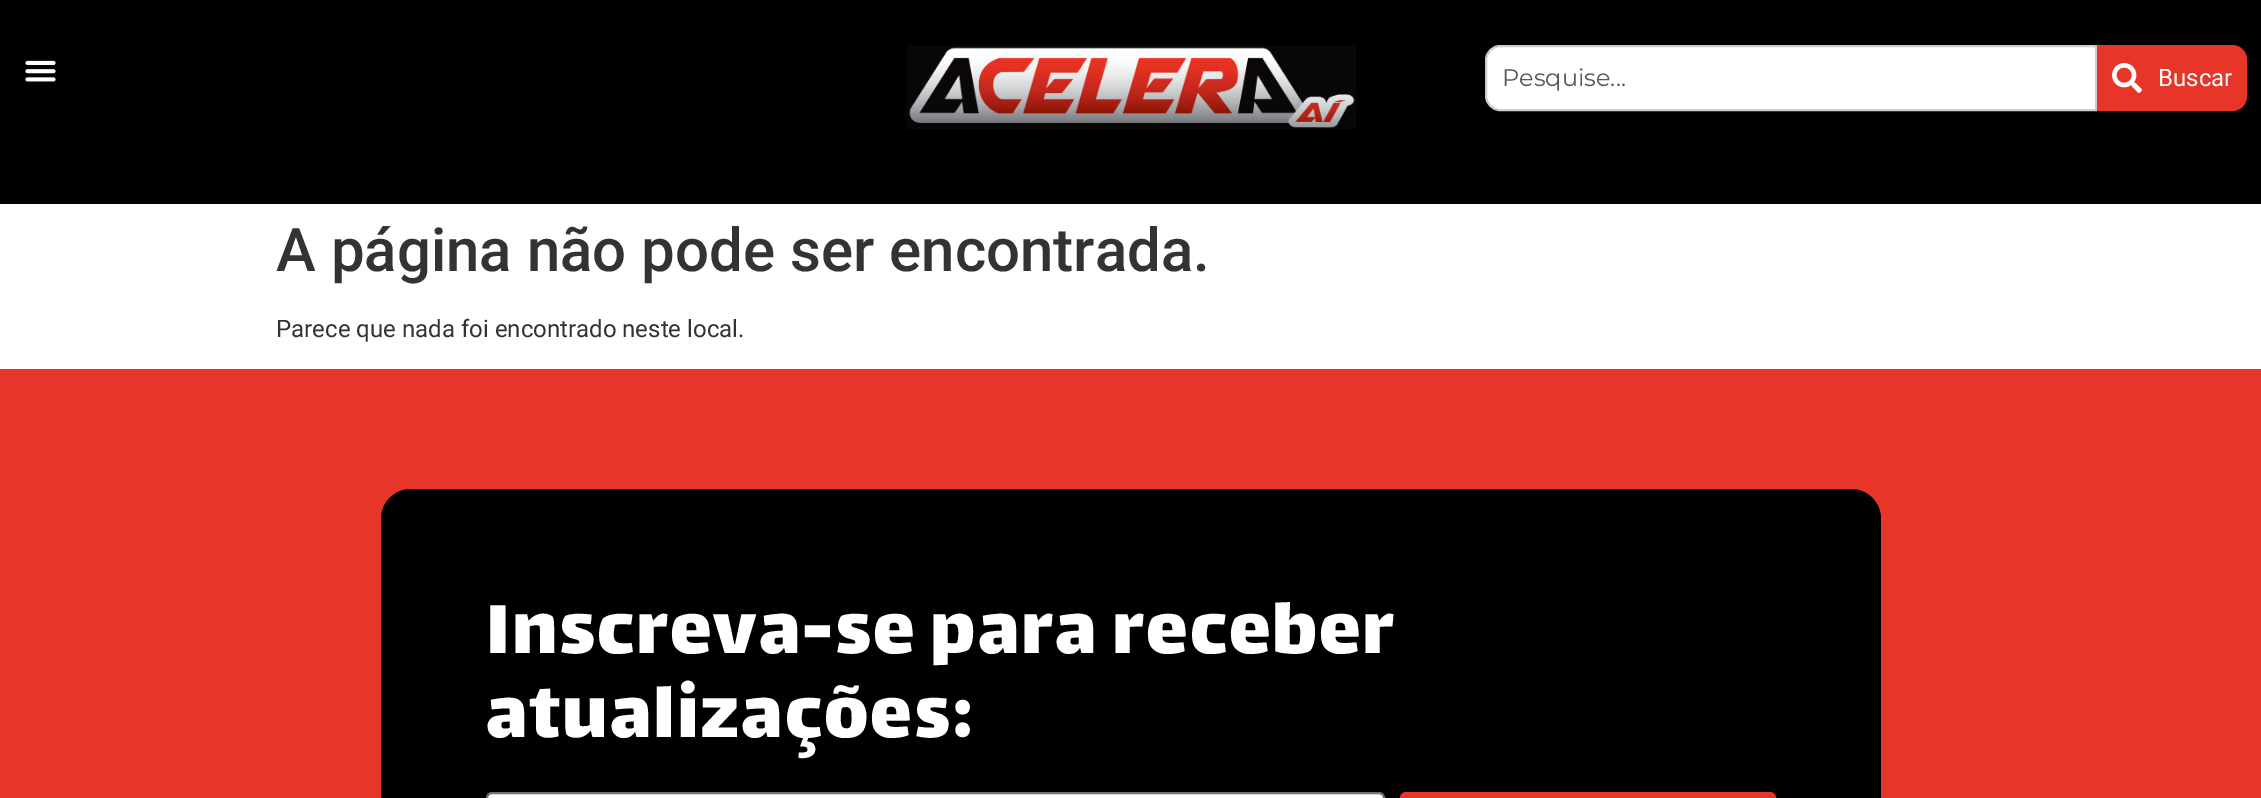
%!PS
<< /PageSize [2261 798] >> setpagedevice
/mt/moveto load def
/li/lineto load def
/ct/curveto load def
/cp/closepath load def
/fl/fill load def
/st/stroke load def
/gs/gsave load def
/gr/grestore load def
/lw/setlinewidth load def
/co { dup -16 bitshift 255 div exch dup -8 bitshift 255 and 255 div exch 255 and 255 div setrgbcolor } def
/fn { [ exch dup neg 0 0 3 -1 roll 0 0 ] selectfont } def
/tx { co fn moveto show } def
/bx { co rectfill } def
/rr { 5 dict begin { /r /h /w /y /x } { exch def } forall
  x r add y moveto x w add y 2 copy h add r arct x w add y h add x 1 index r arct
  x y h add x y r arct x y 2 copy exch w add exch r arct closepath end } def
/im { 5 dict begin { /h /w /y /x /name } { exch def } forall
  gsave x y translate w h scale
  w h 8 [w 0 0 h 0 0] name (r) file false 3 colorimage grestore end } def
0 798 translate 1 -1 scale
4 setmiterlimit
0 0 2261 798 16#FFFFFF bx
0 0 2261 204 16#000000 bx
(media/1.raw) 25 60 31 22 im
(media/2.raw) 906 45 450 84 im
16#FFFFFF co
1500 46 mt 2096 46 li 2096 110 li 1500 110 li 1492.5 110 1486 103.5 1486 96 ct 1486 60 li 1486 52.5 1492.5 46 1500 46 ct cp gs fl gr
16#CDCDCD co
2 lw
st
16#E73629 co
2097 45 mt 2232 45 li 2240.5 45 2247 51.5 2247 60 ct 2247 96 li 2247 104.5 2240.5 111 2232 111 ct 2097 111 li cp fl
(media/3.raw) 2112 63 30 30 im
0 369 2261 429 16#E73629 bx
16#000000 co
381 489 1500 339 30 rr fl
16#FFFFFF co
487 793 897 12 5 rr gs fl gr
16#69727D co
st
16#E73629 co
1400 792 376 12 6 rr fl
(Pesquise...) 1502 86 /Montserrat-Regular 24 16#515962 tx
(Buscar) 2158 86 /Roboto-Regular 24 16#FFFFFF tx
(A página não pode ser encontrada.) 276 271 /Roboto-Medium 60 16#333333 tx
(Parece que nada foi encontrado neste local.) 276 337 /Roboto-Regular 24 16#333333 tx
/Lalezar-Regular 84 fn
16#FFFFFF co
486 653 mt 1.95 0 (Inscreva-se para receber) ashow
486 737 mt 1.95 0 (atualizações:) ashow
showpage
